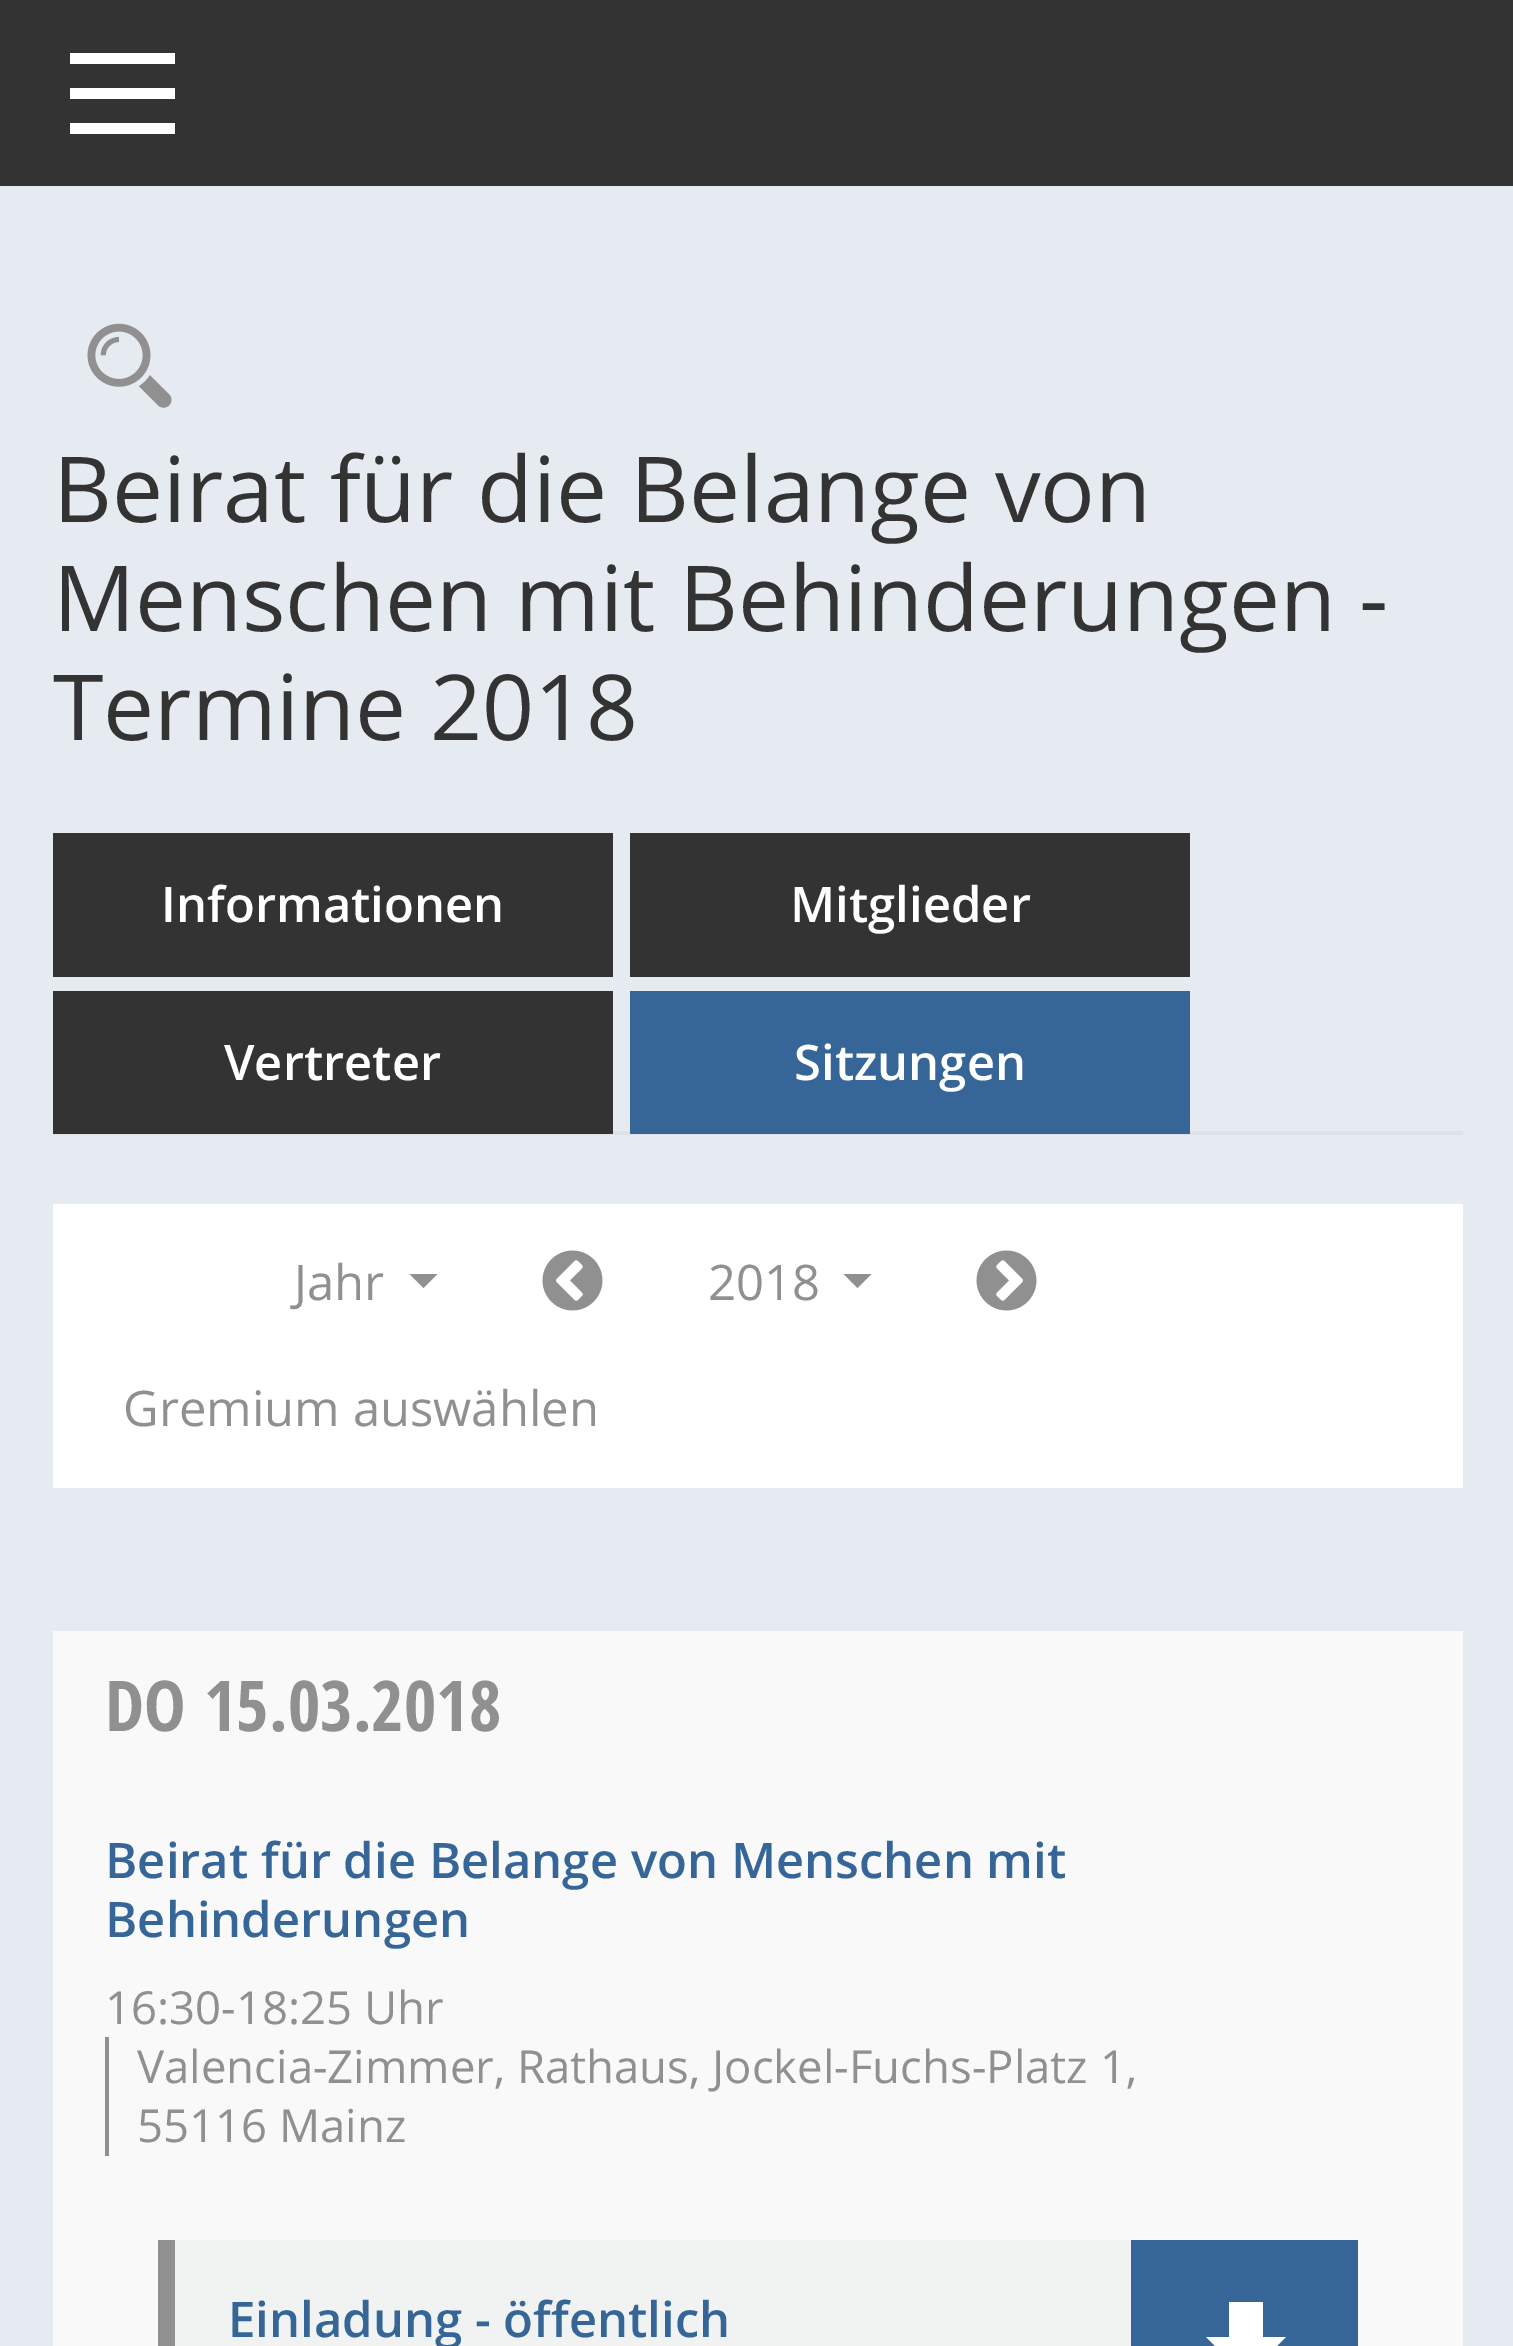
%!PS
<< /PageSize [1513 2346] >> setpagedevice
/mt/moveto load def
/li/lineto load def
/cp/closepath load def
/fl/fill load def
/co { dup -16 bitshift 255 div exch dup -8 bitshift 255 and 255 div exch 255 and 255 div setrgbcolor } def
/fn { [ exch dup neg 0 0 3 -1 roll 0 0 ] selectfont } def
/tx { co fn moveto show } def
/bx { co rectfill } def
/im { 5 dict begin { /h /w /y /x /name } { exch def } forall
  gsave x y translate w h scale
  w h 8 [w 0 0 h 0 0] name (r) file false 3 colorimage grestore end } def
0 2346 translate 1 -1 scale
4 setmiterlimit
0 0 1513 2346 16#E5EBF1 bx
0 0 1513 186 16#333333 bx
70 53 105 11 16#FFFFFF bx
70 88 105 11 16#FFFFFF bx
70 123 105 11 16#FFFFFF bx
(media/1.raw) 87 323 85 85 im
53 1131 1410 4 16#DEE2E6 bx
53 833 560 144 16#333333 bx
630 833 560 144 16#333333 bx
53 991 560 143 16#333333 bx
630 991 560 143 16#356697 bx
53 1204 1410 284 16#FFFFFF bx
16#909090 co
409.5 1274 mt 437.5 1274 li 423.5 1288 li cp fl
(media/2.raw) 542 1250 61 61 im
843.5 1274 mt 871.5 1274 li 857.5 1288 li cp fl
(media/3.raw) 976 1250 61 61 im
53 1631 1410 715 16#F9F9F9 bx
105 2037 4 119 16#909090 bx
175 2240 956 106 16#F0F3F2 bx
158 2240 17 106 16#909090 bx
1131 2240 227 106 16#356697 bx
16#FFFFFF co
1286 2337 mt 1263 2337 li 1263 2302 li 1229 2302 li 1229 2337 li 1206 2337 li 1246 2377 li cp 1206 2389 mt 1206 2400 li 1286 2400 li 1286 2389 li cp fl
(Beirat für die Belange von) 53 522 /OpenSans-Regular 91 16#333333 tx
(Menschen mit Behinderungen -) 53 631 /OpenSans-Regular 91 16#333333 tx
(Termine 2018) 53 740 /OpenSans-Regular 91 16#333333 tx
(Informationen) 161 922 /OpenSans-SemiBold 49 16#FFFFFF tx
(Mitglieder) 790 922 /OpenSans-SemiBold 49 16#FFFFFF tx
(Vertreter) 224 1080 /OpenSans-SemiBold 49 16#FFFFFF tx
(Sitzungen) 794 1080 /OpenSans-SemiBold 49 16#FFFFFF tx
(Jahr) 294 1300 /OpenSans-Regular 49 16#909090 tx
(2018) 708 1300 /OpenSans-Regular 49 16#909090 tx
(Gremium auswählen) 123 1426 /OpenSans-Regular 49 16#909090 tx
(DO) 105 1731 /OpenSansCondensed-Bold 70 16#909090 tx
(15.03.2018) 204 1731 /OpenSansCondensed-Bold 70 16#909090 tx
(Beirat für die Belange von Menschen mit) 105 1878 /OpenSans-SemiBold 49 16#356697 tx
(Behinderungen) 105 1937 /OpenSans-SemiBold 49 16#356697 tx
(16:30-18:25 Uhr) 105 2024 /OpenSans-Regular 45.5 16#909090 tx
(Valencia-Zimmer, Rathaus, Jockel-Fuchs-Platz 1,) 137 2083 /OpenSans-Regular 45.5 16#909090 tx
(55116 Mainz) 137 2142 /OpenSans-Regular 45.5 16#909090 tx
(Einladung - öffentlich) 228 2337 /OpenSans-SemiBold 49 16#356697 tx
showpage
